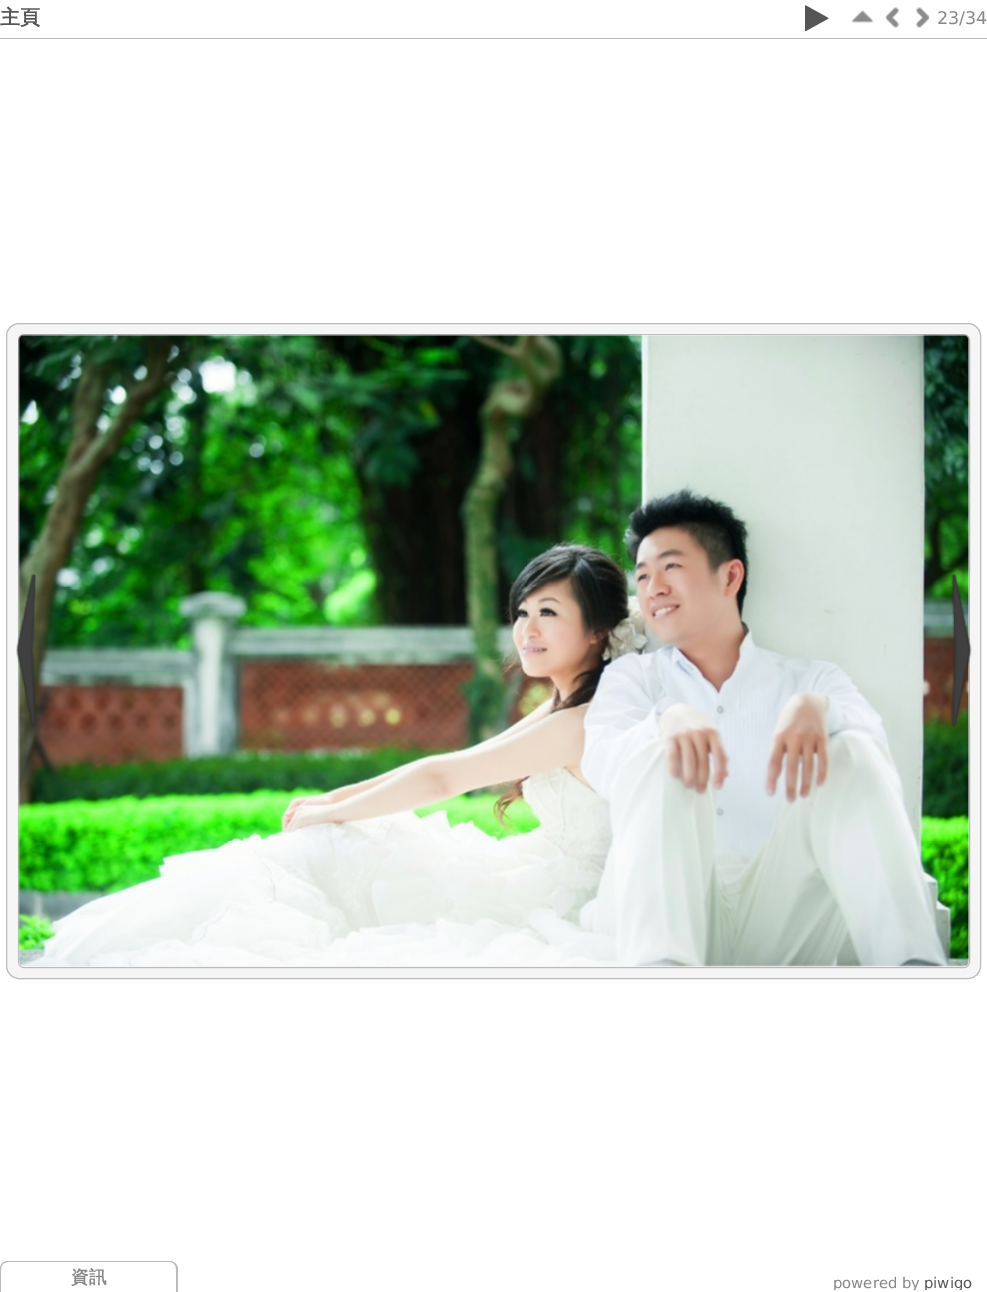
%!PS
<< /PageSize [987 1292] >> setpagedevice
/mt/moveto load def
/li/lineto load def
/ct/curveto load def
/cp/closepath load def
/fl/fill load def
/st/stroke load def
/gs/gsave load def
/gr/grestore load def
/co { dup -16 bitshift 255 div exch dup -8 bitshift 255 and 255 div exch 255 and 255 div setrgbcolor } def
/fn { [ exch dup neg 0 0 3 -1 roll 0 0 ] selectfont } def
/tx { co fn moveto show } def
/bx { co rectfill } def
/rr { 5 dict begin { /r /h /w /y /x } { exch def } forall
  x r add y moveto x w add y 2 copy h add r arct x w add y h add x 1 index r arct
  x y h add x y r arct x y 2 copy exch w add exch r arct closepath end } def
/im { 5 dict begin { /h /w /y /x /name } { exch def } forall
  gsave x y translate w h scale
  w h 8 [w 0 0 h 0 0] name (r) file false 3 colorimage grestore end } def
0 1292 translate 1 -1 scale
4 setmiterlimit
0 0 987 1292 16#FFFFFF bx
0 38 987 1 16#BBBBBB bx
(media/1.raw) 805 5 24 27 im
(media/2.raw) 851 10 23 13 im
(media/3.raw) 885 7 14 21 im
(media/4.raw) 916 7 14 21 im
16#F5F5F5 co
6.5 323.5 974 655 12.5 rr gs fl gr
16#BBBBBB co
st
18.5 334.5 951 633 5.5 rr st
(media/5.raw) 18 334 952 633 im
(media/6.raw) 16 573 21 153 im
(media/7.raw) 951 573 21 154 im
8 1261 mt 170 1261 li 174 1261 178 1265 178 1269 ct 178 1292 li 0 1292 li 0 1269 li 0 1265 3 1261 8 1261 ct cp 8 1262 mt 170 1262 li 173 1262 176 1265 176 1269 ct 176 1292 li 1 1292 li 1 1269 li 1 1265 4 1262 8 1262 ct cp eofill
(主頁) 0 24 /WenQuanYiZenHei-Bold 20 16#555555 tx
(23/34) 937 24 /DejaVuSans-Regular 17.5 16#888888 tx
(資訊) 71 1283 /WenQuanYiZenHei-Bold 17.5 16#888888 tx
gs
833 1275 140 15 rectclip
(powered by) 833 1288 /DejaVuSans-Regular 14.75 16#888888 tx
(piwigo) 924 1288 /DejaVuSans-Regular 14.75 16#555555 tx
gr
showpage
